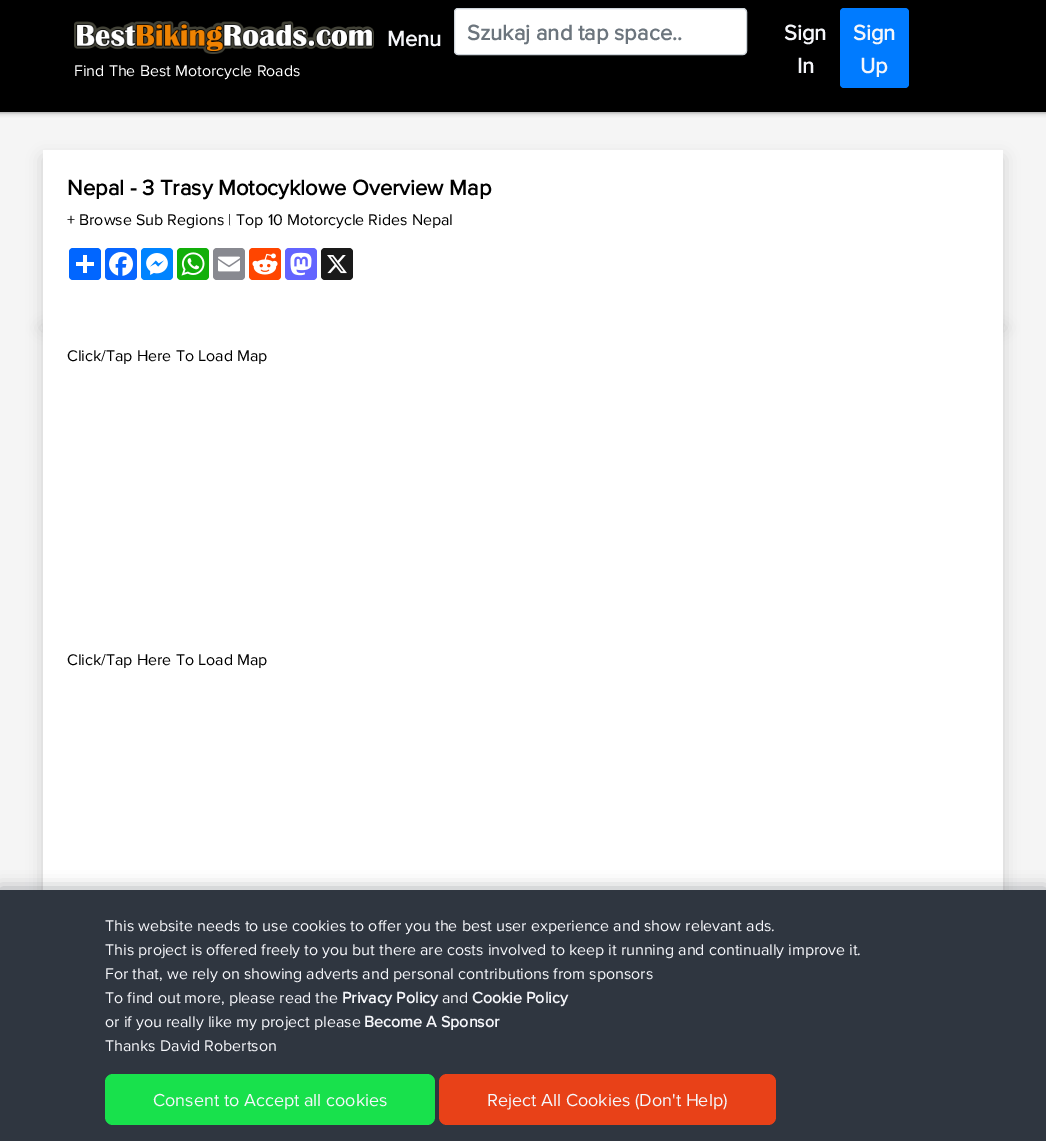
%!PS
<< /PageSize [1046 1141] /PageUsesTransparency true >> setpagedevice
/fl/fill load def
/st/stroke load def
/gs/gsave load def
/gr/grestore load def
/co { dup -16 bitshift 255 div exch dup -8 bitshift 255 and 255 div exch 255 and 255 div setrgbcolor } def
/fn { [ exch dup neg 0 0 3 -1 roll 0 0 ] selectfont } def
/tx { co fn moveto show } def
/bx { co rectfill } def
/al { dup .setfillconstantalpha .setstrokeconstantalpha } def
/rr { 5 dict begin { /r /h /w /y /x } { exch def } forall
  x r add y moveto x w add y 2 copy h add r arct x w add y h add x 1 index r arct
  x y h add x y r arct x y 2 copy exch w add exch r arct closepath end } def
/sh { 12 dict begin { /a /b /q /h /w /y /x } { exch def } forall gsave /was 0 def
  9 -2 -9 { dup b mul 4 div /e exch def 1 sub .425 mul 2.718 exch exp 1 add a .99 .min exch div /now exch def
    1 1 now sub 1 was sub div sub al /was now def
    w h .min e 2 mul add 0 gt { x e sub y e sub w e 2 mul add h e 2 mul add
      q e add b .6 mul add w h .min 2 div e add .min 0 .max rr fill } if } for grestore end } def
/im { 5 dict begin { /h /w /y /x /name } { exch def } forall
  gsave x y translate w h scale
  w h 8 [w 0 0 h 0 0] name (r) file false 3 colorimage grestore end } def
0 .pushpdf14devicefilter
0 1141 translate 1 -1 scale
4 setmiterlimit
0 0 1046 1141 16#F5F5F5 bx
16#000000 co
-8 0 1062 112 0 2.5 .5 sh
0 0 1046 112 16#000000 bx
(media/1.raw) 74 21 300 33 im
16#FFFFFF co
454.5 8.5 292 46 3.5 rr gs fl gr
16#CED4DA co
st
16#007BFF co
840 8 69 80 4 rr fl
16#000000 co
43 158 960 170 0 8 .15 sh
43 328 960 652 0 8 .15 sh
43 150 960 740 16#FFFFFF bx
16#0166FF co
69 248 32 32 4 rr fl
83 255 4 18 16#FFFFFF bx
76 262 18 4 16#FFFFFF bx
16#0866FF co
105 248 32 32 4 rr fl
(media/2.raw) 109 252 24 24 im
16#0084FF co
141 248 32 32 4 rr fl
(media/3.raw) 146 253 22 22 im
16#12AF0A co
177 248 32 32 4 rr fl
(media/4.raw) 181 252 24 24 im
16#888990 co
213 248 32 32 4 rr fl
(media/5.raw) 218 256 22 16 im
16#FF4500 co
249 248 32 32 4 rr fl
(media/6.raw) 252 253 26 22 im
16#6364FF co
285 248 32 32 4 rr fl
(media/7.raw) 290 252 22 24 im
16#1A1A1A co
321 248 32 32 4 rr fl
(media/8.raw) 327 255 20 19 im
16#2F3640 co
0 888 1046 251 0 8 .39 sh
0 890 1046 251 16#2F3640 bx
16#18E14C co
105 1074 330 51 8 rr fl
16#E84118 co
439 1074 337 51 8 rr fl
(Find The Best Motorcycle Roads) 74 76 /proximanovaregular-Regular 16 16#FFFFFF tx
(Menu) 387 46 /proximanovaregular-Bold 22 16#F5F6FA tx
(Szukaj and tap space..) 467 40 /proximanovaregular-Bold 22 16#6C757D tx
(Sign) 784 40 /proximanovaregular-Bold 22 16#F5F6FA tx
(In) 797 73 /proximanovaregular-Bold 22 16#F5F6FA tx
(Sign) 853 40 /proximanovaregular-Bold 22 16#F5F6FA tx
(Up) 860 73 /proximanovaregular-Bold 22 16#F5F6FA tx
(Nepal - 3 Trasy Motocyklowe Overview Map) 67 195 /proximanovaregular-Bold 22 16#000000 tx
(+ Browse Sub Regions | Top 10 Motorcycle Rides Nepal) 67 225 /proximanovaregular-Regular 16 16#000000 tx
(Click/Tap Here To Load Map) 67 361 /proximanovaregular-Regular 16 16#000000 tx
(Click/Tap Here To Load Map) 67 665 /proximanovaregular-Regular 16 16#000000 tx
(This website needs to use cookies to offer you the best user experience and show relevant ads.) 105 931 /proximanovaregular-Regular 16 16#F5F6FA tx
(This project is offered freely to you but there are costs involved to keep it running and continually improve it.) 105 955 /proximanovaregular-Regular 16 16#F5F6FA tx
(For that, we rely on showing adverts and personal contributions from sponsors) 105 979 /proximanovaregular-Regular 16 16#F5F6FA tx
(To find out more, please read the) 105 1003 /proximanovaregular-Regular 16 16#F5F6FA tx
(Privacy Policy) 342 1003 /proximanovaregular-Bold 16 16#F5F6FA tx
(and) 442 1003 /proximanovaregular-Regular 16 16#F5F6FA tx
(Cookie Policy) 472 1003 /proximanovaregular-Bold 16 16#F5F6FA tx
(or if you really like my project please) 105 1027 /proximanovaregular-Regular 16 16#F5F6FA tx
(Become A Sponsor) 364 1027 /proximanovaregular-Bold 16 16#F5F6FA tx
(Thanks David Robertson) 105 1051 /proximanovaregular-Regular 16 16#F5F6FA tx
(Consent to Accept all cookies) 153 1106 /proximanovaregular-Regular 18 16#F5F6FA tx
(Reject All Cookies \(Don't Help\)) 487 1106 /proximanovaregular-Regular 18 16#F5F6FA tx
.poppdf14devicefilter showpage
